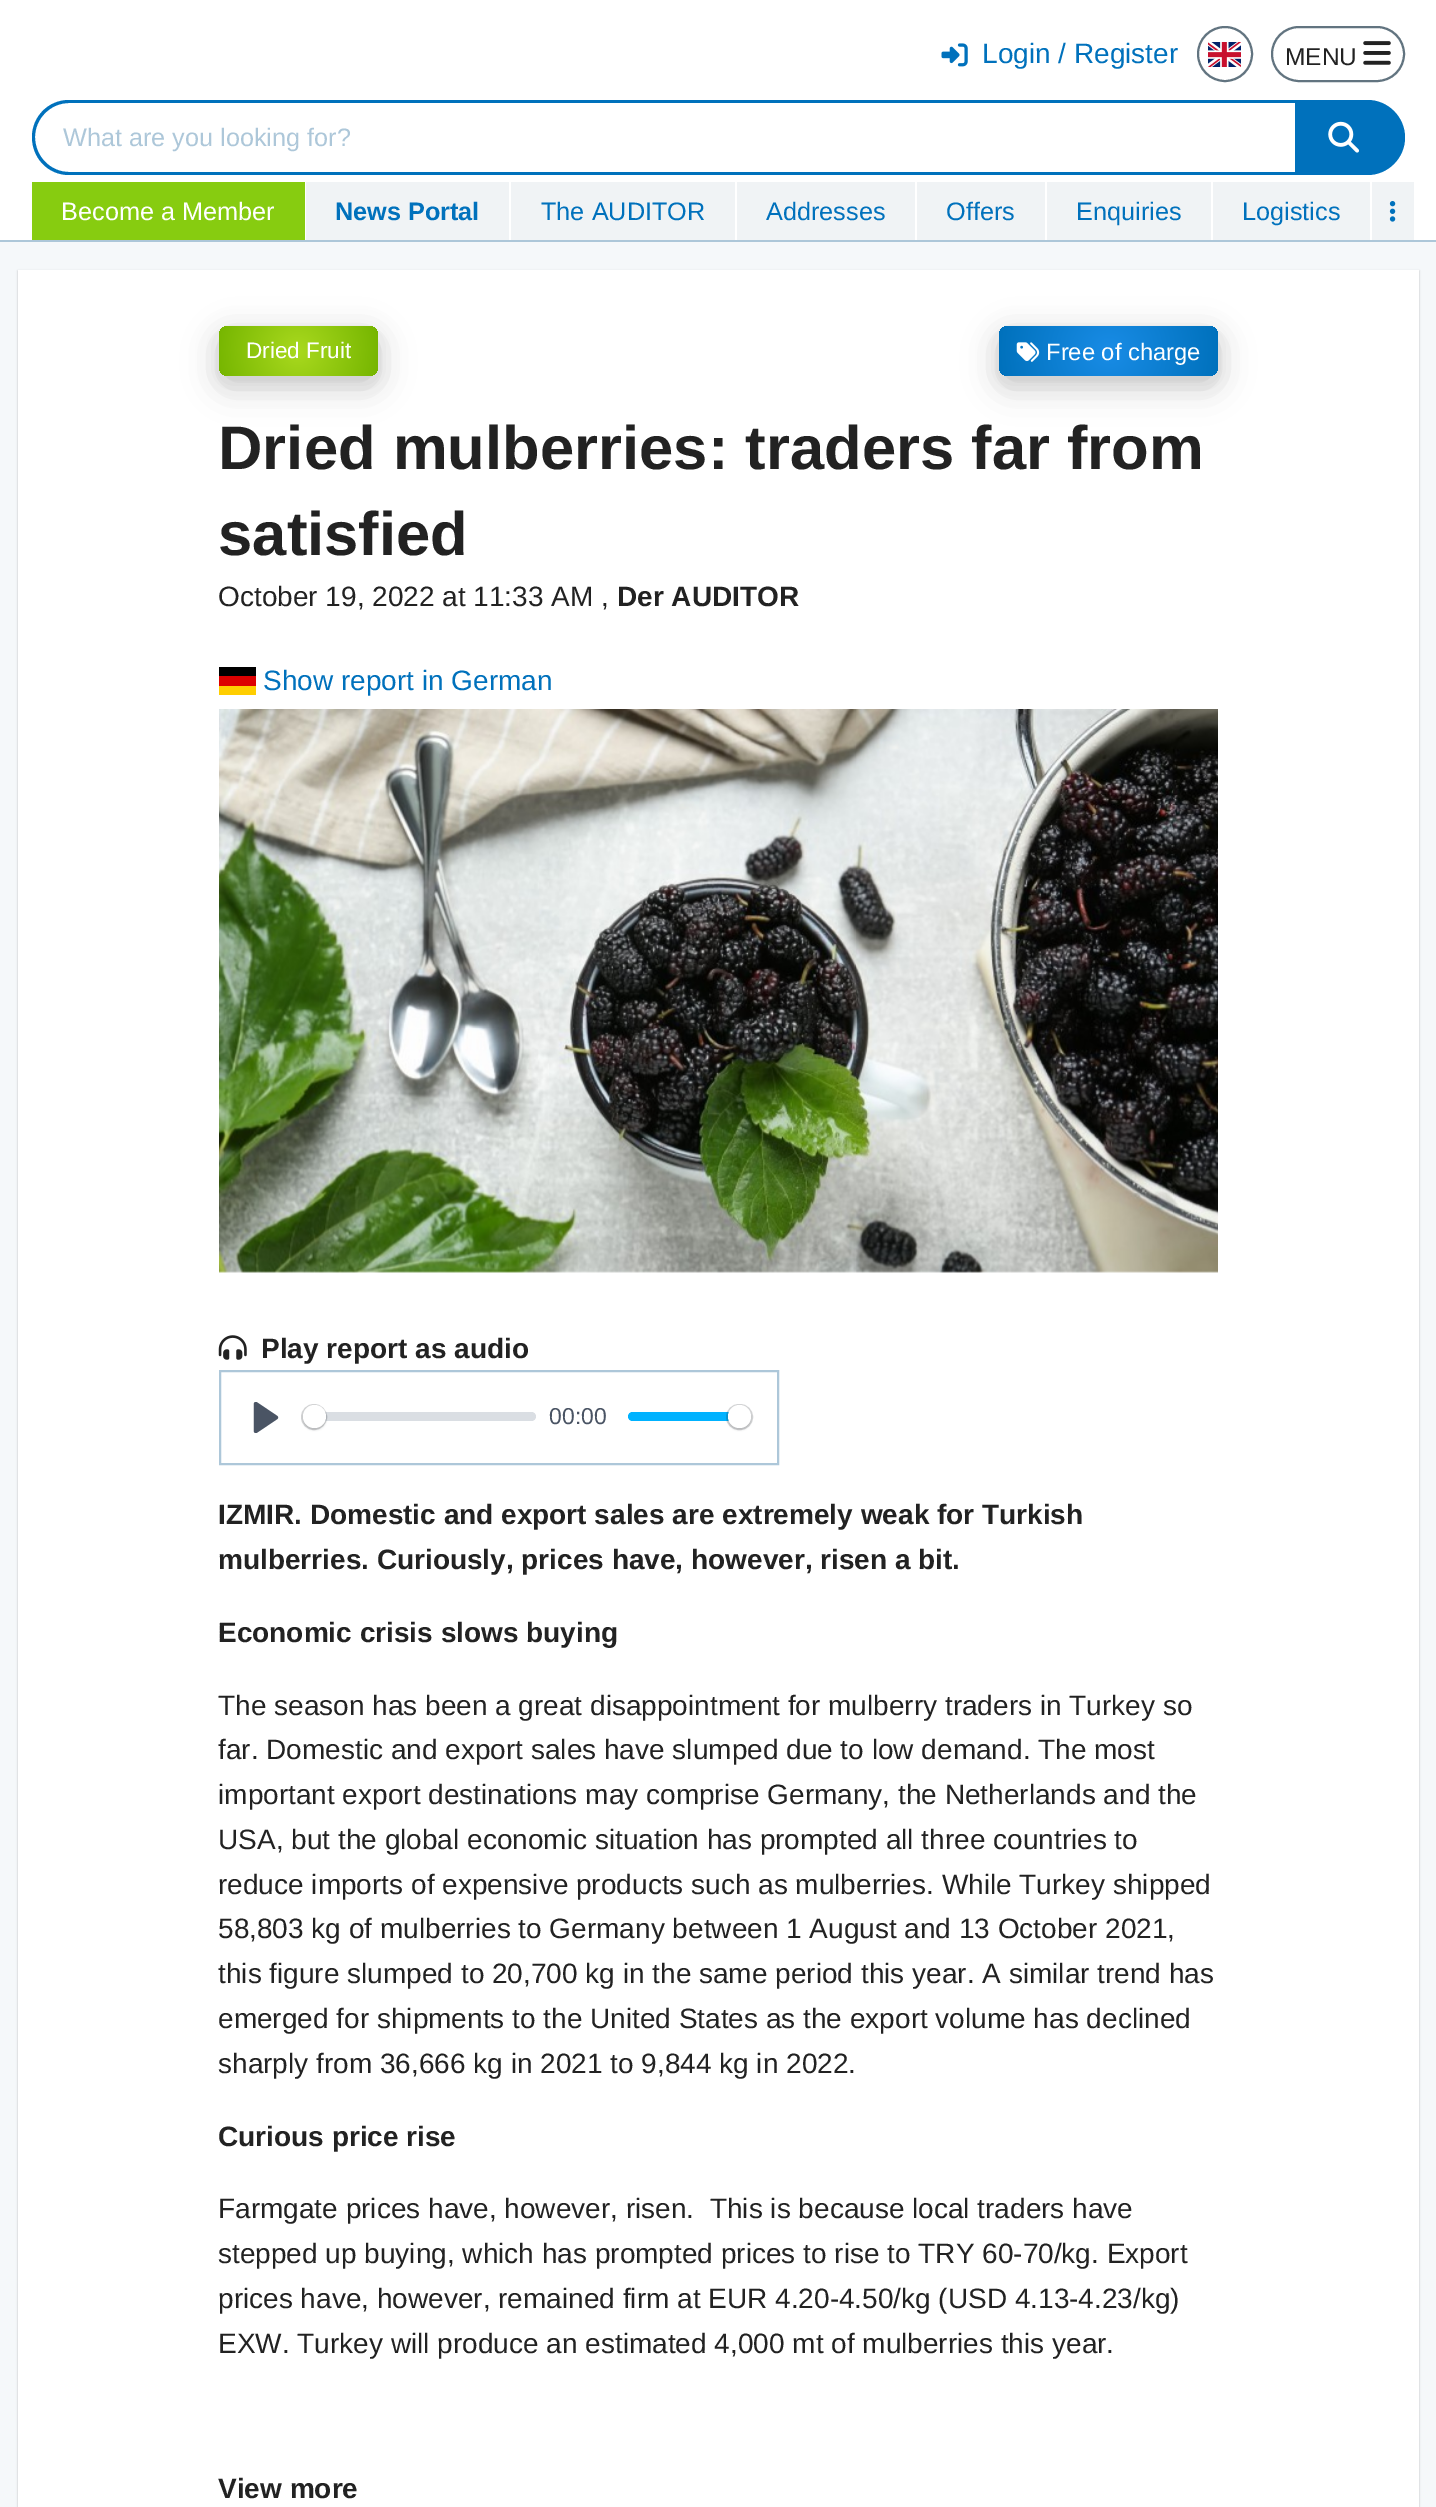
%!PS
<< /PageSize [1436 2507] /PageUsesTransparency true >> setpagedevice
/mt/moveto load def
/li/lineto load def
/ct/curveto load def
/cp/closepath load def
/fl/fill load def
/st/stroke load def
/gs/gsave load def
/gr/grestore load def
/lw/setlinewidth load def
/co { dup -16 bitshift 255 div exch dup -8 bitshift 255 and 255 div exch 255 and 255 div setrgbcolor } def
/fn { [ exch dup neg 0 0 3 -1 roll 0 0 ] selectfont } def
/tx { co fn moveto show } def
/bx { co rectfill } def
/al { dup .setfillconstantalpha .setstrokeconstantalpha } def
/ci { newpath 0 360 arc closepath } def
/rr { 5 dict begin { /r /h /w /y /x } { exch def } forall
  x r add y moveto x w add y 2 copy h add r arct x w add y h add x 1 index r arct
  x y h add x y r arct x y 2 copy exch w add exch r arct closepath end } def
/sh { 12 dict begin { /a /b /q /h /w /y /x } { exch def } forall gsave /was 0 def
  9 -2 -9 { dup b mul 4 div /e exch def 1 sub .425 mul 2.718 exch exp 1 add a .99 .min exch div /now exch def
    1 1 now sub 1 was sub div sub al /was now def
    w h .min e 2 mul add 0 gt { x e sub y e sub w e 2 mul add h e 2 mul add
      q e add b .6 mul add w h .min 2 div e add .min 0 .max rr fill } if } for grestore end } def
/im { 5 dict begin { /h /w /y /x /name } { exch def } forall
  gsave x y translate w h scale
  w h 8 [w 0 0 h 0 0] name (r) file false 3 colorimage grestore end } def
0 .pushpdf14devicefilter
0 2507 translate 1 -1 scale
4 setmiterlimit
0 0 1436 2507 16#F5F8FA bx
0 0 1436 240 16#FFFFFF bx
0 240 1436 2 16#ADC7D9 bx
(media/1.raw) 941 43 27 24 im
16#627480 co
2 lw
1225 54 27 ci st
(media/2.raw) 1208 42 33 25 im
1272 27 132 54 27 rr st
(media/3.raw) 1363 41 28 24 im
16#0071BC co
69 100 mt 1295 100 li 1295 175 li 69 175 li 48 175 32 158 32 137 ct 32 117 48 100 69 100 ct cp 69 103 mt 1295 103 li 1295 172 li 69 172 li 50 172 35 156 35 137 ct 35 119 50 103 69 103 ct cp eofill
1295 100 mt 1367.5 100 li 1388 100 1405 117 1405 137.5 ct 1405 158 1388 175 1367.5 175 ct 1295 175 li cp fl
(media/4.raw) 1328 121 31 32 im
32 182 273 58 16#87CC10 bx
306 182 203 58 16#F0F3F5 bx
511 182 224 58 16#F0F3F5 bx
737 182 178 58 16#F0F3F5 bx
917 182 128 58 16#F0F3F5 bx
1047 182 164 58 16#F0F3F5 bx
1213 182 157 58 16#F0F3F5 bx
1372 182 42 58 16#F0F3F5 bx
(media/5.raw) 1389 201 7 21 im
16#000000 co
18 271 1401 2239 0 1 .25 sh
18 270 1401 2237 16#FFFFFF bx
16#000000 co
219 336 159 51 9 17.5 .15 sh
219 333 159 50 9 10.5 .1 sh
gs 219 326 159 50 9 rr clip newpath 298 351 translate 84 84 scale
<< /ShadingType 3 /ColorSpace /DeviceRGB /Coords [0 0 0 0 0 1] /Extend [true true] /Function << /FunctionType 2 /Domain [0 1] /C0 [.663 .851 .118] /C1 [.459 .71 0] /N 1 >> >> shfill gr
999 336 219 51 9 17.5 .15 sh
999 333 219 50 9 10.5 .1 sh
gs 999 326 219 50 9 rr clip newpath 1109 351 translate 112 112 scale
<< /ShadingType 3 /ColorSpace /DeviceRGB /Coords [0 0 0 0 0 1] /Extend [true true] /Function << /FunctionType 2 /Domain [0 1] /C0 [.098 .549 .902] /C1 [0 .443 .737] /N 1 >> >> shfill gr
(media/6.raw) 1016 342 24 20 im
219 686 37 9 16#FFCE00 bx
219 667 37 9 16#000000 bx
219 676 37 10 16#DD0000 bx
(media/7.raw) 219 709 999 564 im
(media/8.raw) 218 1335 29 25 im
16#ADC7D9 co
220 1371 558 93 rectstroke
(media/9.raw) 253 1402 26 31 im
0.6 al
16#C1C8D1 co
303 1412 233 9 4.5 rr fl
0.2 al
16#23282F co
314 1417 12 ci st
1 al
303 1407 23 23 11.5 1 .15 sh
16#FFFFFF co
314.5 1416.5 11.5 ci fl
16#00B2FF co
628 1412 123 9 4.5 rr fl
0.2 al
16#23282F co
727 1405 25 24 12 rr st
1 al
728 1407 23 23 11.5 1 .15 sh
16#FFFFFF co
739.5 1416.5 11.5 ci fl
(Login / Register) 982 63 /LiberationSans-Regular 28 16#0071BC tx
(MENU) 1285 65 /LiberationSans-Regular 24.5 16#222222 tx
(What are you looking for?) 63 146 /LiberationSans-Regular 25.25 16#ADC7D9 tx
(Become a Member) 61 220 /LiberationSans-Regular 25.25 16#FFFFFF tx
(News Portal) 335 220 /LiberationSans-Bold 25.25 16#0071BC tx
(The AUDITOR) 541 220 /LiberationSans-Regular 25.25 16#0071BC tx
(Addresses) 766 220 /LiberationSans-Regular 25.25 16#0071BC tx
(Offers) 946 220 /LiberationSans-Regular 25.25 16#0071BC tx
(Enquiries) 1076 220 /LiberationSans-Regular 25.25 16#0071BC tx
(Logistics) 1242 220 /LiberationSans-Regular 25.25 16#0071BC tx
(Dried Fruit) 246 358 /LiberationSans-Regular 22.5 16#FFFFFF tx
(Free of charge) 1046 360 /LiberationSans-Regular 23.75 16#FFFFFF tx
(Dried mulberries: traders far from) 218 469 /LiberationSans-Bold 61.6 16#222222 tx
(satisfied) 218 555 /LiberationSans-Bold 61.6 16#222222 tx
(October 19, 2022 at 11:33 AM ,) 218 606 /LiberationSans-Regular 28 16#222222 tx
(Der AUDITOR) 617 606 /LiberationSans-Bold 28 16#222222 tx
(Show report in German) 263 690 /LiberationSans-Regular 28 16#0071BC tx
(Play report as audio) 261 1358 /LiberationSans-Bold 28 16#222222 tx
(00:00) 549 1424 /LiberationSans-Regular 23 16#4A5464 tx
(IZMIR. Domestic and export sales are extremely weak for Turkish) 218 1524 /LiberationSans-Bold 28 16#222222 tx
(mulberries. Curiously, prices have, however, risen a bit.) 218 1569 /LiberationSans-Bold 28 16#222222 tx
(Economic crisis slows buying) 218 1642 /LiberationSans-Bold 28 16#222222 tx
(The season has been a great disappointment for mulberry traders in Turkey so) 218 1715 /LiberationSans-Regular 28 16#222222 tx
(far. Domestic and export sales have slumped due to low demand. The most) 218 1759 /LiberationSans-Regular 28 16#222222 tx
(important export destinations may comprise Germany, the Netherlands and the) 218 1804 /LiberationSans-Regular 28 16#222222 tx
(USA, but the global economic situation has prompted all three countries to) 218 1849 /LiberationSans-Regular 28 16#222222 tx
(reduce imports of expensive products such as mulberries. While Turkey shipped) 218 1894 /LiberationSans-Regular 28 16#222222 tx
(58,803 kg of mulberries to Germany between 1 August and 13 October 2021,) 218 1938 /LiberationSans-Regular 28 16#222222 tx
(this figure slumped to 20,700 kg in the same period this year. A similar trend has) 218 1983 /LiberationSans-Regular 28 16#222222 tx
(emerged for shipments to the United States as the export volume has declined) 218 2028 /LiberationSans-Regular 28 16#222222 tx
(sharply from 36,666 kg in 2021 to 9,844 kg in 2022.) 218 2073 /LiberationSans-Regular 28 16#222222 tx
(Curious price rise) 218 2146 /LiberationSans-Bold 28 16#222222 tx
(Farmgate prices have, however, risen.  This is because local traders have) 218 2218 /LiberationSans-Regular 28 16#222222 tx
(stepped up buying, which has prompted prices to rise to TRY 60-70/kg. Export) 218 2263 /LiberationSans-Regular 28 16#222222 tx
(prices have, however, remained firm at EUR 4.20-4.50/kg \(USD 4.13-4.23/kg\)) 218 2308 /LiberationSans-Regular 28 16#222222 tx
(EXW. Turkey will produce an estimated 4,000 mt of mulberries this year.) 218 2353 /LiberationSans-Regular 28 16#222222 tx
(View more) 218 2498 /LiberationSans-Bold 28 16#222222 tx
.poppdf14devicefilter showpage
